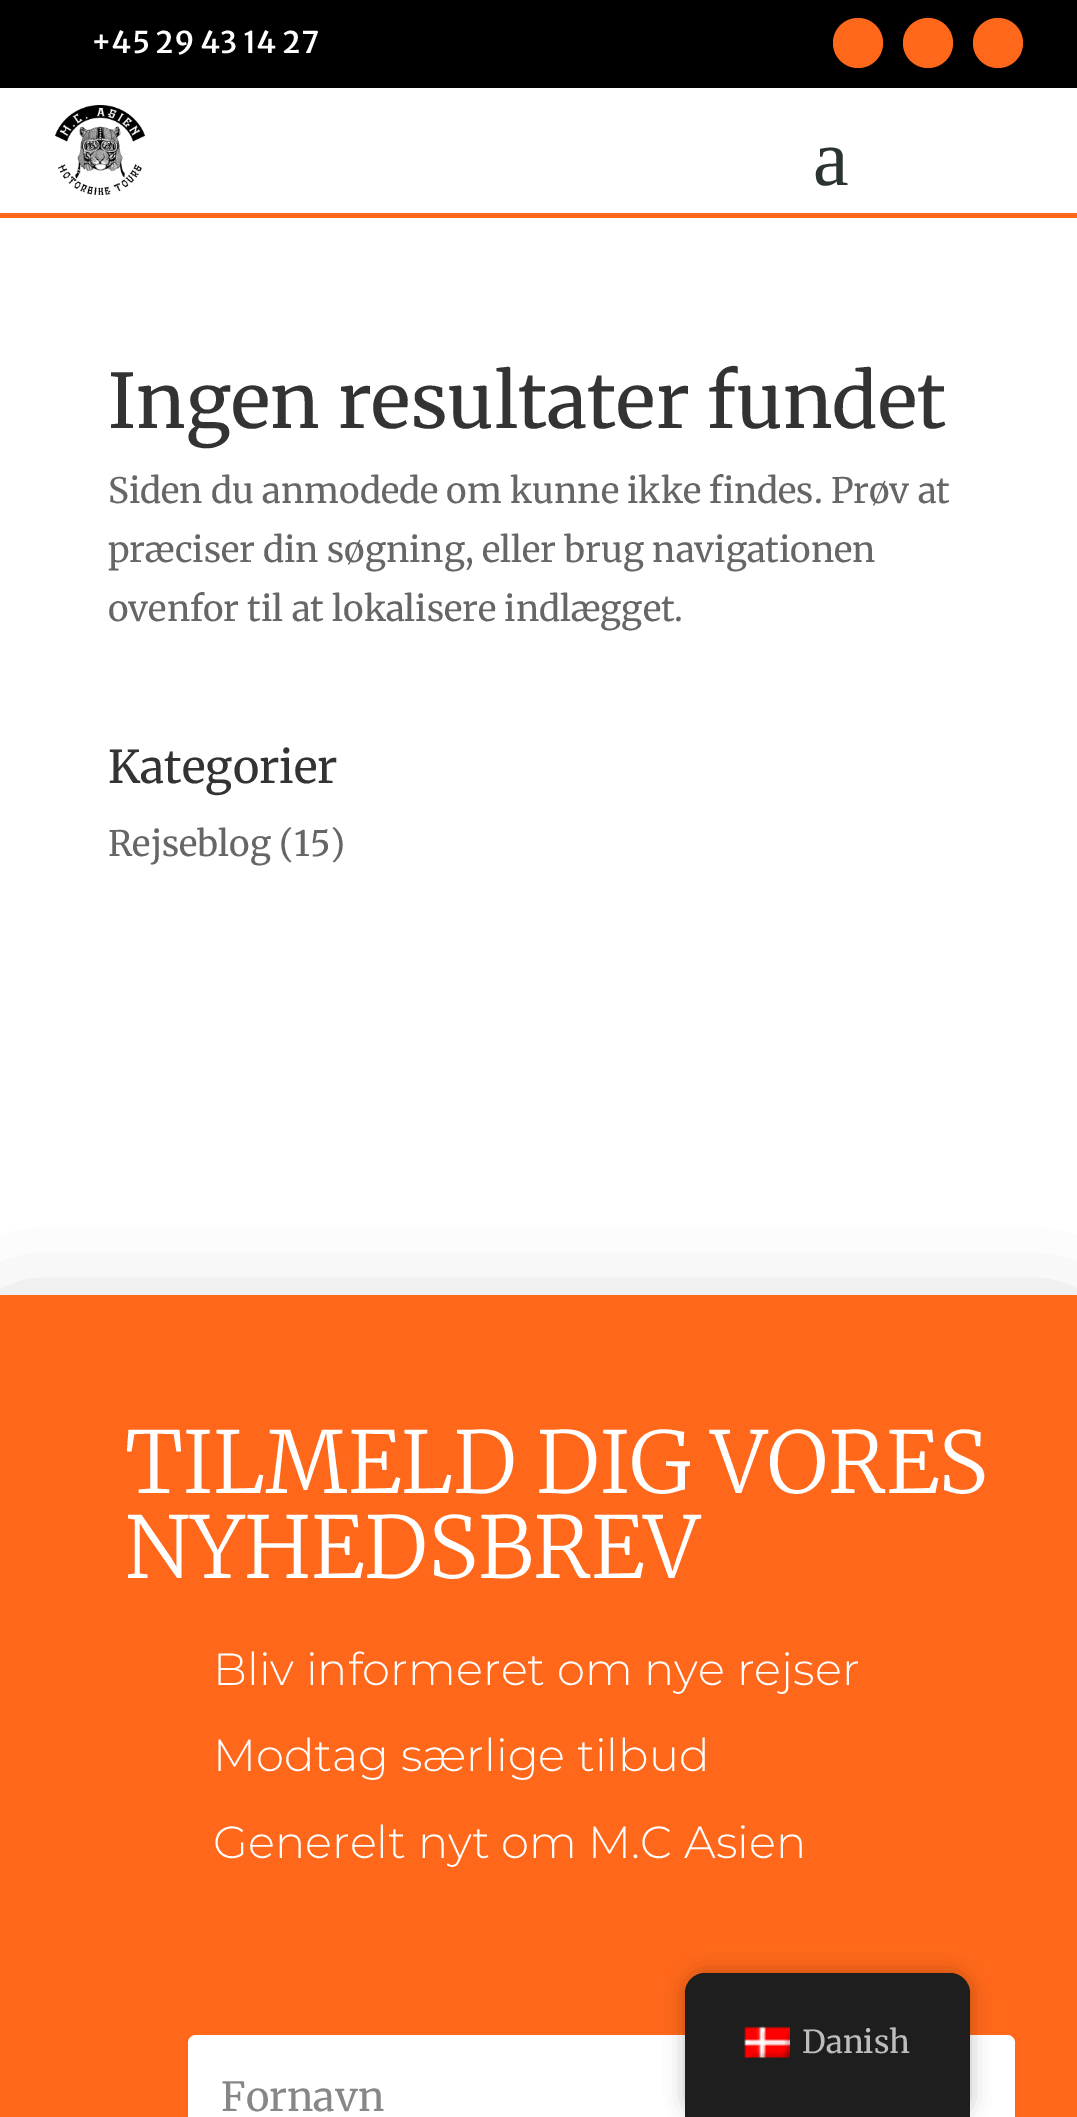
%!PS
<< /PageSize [1077 2117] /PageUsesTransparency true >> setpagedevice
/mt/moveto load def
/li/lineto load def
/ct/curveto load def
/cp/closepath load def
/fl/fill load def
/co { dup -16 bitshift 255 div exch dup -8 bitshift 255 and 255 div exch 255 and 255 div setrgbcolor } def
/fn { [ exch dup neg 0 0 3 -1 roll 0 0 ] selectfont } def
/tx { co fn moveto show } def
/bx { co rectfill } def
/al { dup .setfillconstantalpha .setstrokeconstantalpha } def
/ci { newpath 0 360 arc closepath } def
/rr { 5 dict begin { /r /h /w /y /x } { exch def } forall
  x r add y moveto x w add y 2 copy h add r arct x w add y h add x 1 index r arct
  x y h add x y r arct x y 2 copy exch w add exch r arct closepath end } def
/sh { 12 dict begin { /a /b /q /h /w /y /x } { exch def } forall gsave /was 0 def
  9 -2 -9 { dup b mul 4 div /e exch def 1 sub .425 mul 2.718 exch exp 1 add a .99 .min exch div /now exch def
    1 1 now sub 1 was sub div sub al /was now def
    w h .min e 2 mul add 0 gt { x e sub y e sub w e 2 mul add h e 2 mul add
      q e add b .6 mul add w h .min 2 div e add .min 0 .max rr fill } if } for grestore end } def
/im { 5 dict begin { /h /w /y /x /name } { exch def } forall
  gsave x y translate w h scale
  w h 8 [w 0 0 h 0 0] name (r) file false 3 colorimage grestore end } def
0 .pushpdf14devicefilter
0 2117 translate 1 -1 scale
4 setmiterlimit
0 0 1077 2117 16#FFFFFF bx
0 213 1077 5 16#FF681A bx
0 0 1077 88 16#000000 bx
16#FF681A co
858 43 25 ci fl
928 43 25 ci fl
998 43 25 ci fl
(media/1.raw) 55 105 90 90 im
16#000000 co
15 1340 1048 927 0 50 .38 sh
0 1295 1077 822 16#FF681A bx
16#FFFFFF co
188 2035 827 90 8 rr fl
16#000000 co
685 1973 285 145 20 10 .25 sh
16#1E1E1E co
705 1973 mt 950 1973 li 961 1973 970 1982 970 1993 ct 970 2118 li 685 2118 li 685 1993 li 685 1982 694 1973 705 1973 ct cp fl
(media/2.raw) 744 2026 46 32 im
(+45 29 43 14 27) 91 53 /MerriweatherSans-Medium 30 16#FFFFFF tx
(a) 813 185 /LiberationSerif-Regular 80 16#2C3333 tx
(Ingen resultater fundet) 108 428 /Merriweather-Light 75 16#333333 tx
(Siden du anmodede om kunne ikke findes. Prøv at) 108 503 /Merriweather-Light 35 16#666666 tx
(præciser din søgning, eller brug navigationen) 108 562 /Merriweather-Light 35 16#666666 tx
(ovenfor til at lokalisere indlægget.) 108 621 /Merriweather-Light 35 16#666666 tx
(Kategorier) 108 783 /Merriweather-Light 45 16#333333 tx
(Rejseblog \(15\)) 108 856 /Merriweather-Light 35 16#666666 tx
(TILMELD DIG VORES) 125 1493 /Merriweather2-Light 85 16#FFFFFF tx
(NYHEDSBREV) 125 1578 /Merriweather2-Light 85 16#FFFFFF tx
(Bliv informeret om nye rejser) 213 1685 /Montserrat-Thin 45 16#FFFFFF tx
(Modtag særlige tilbud) 213 1771 /Montserrat-Thin 45 16#FFFFFF tx
(Generelt nyt om M.C Asien) 213 1858 /Montserrat-Thin 45 16#FFFFFF tx
(Fornavn) 221 2111 /Merriweather-Light 40 16#878787 tx
(Danish) 802 2053 /Merriweather-Light 31.5 16#BDBDBD tx
.poppdf14devicefilter showpage
